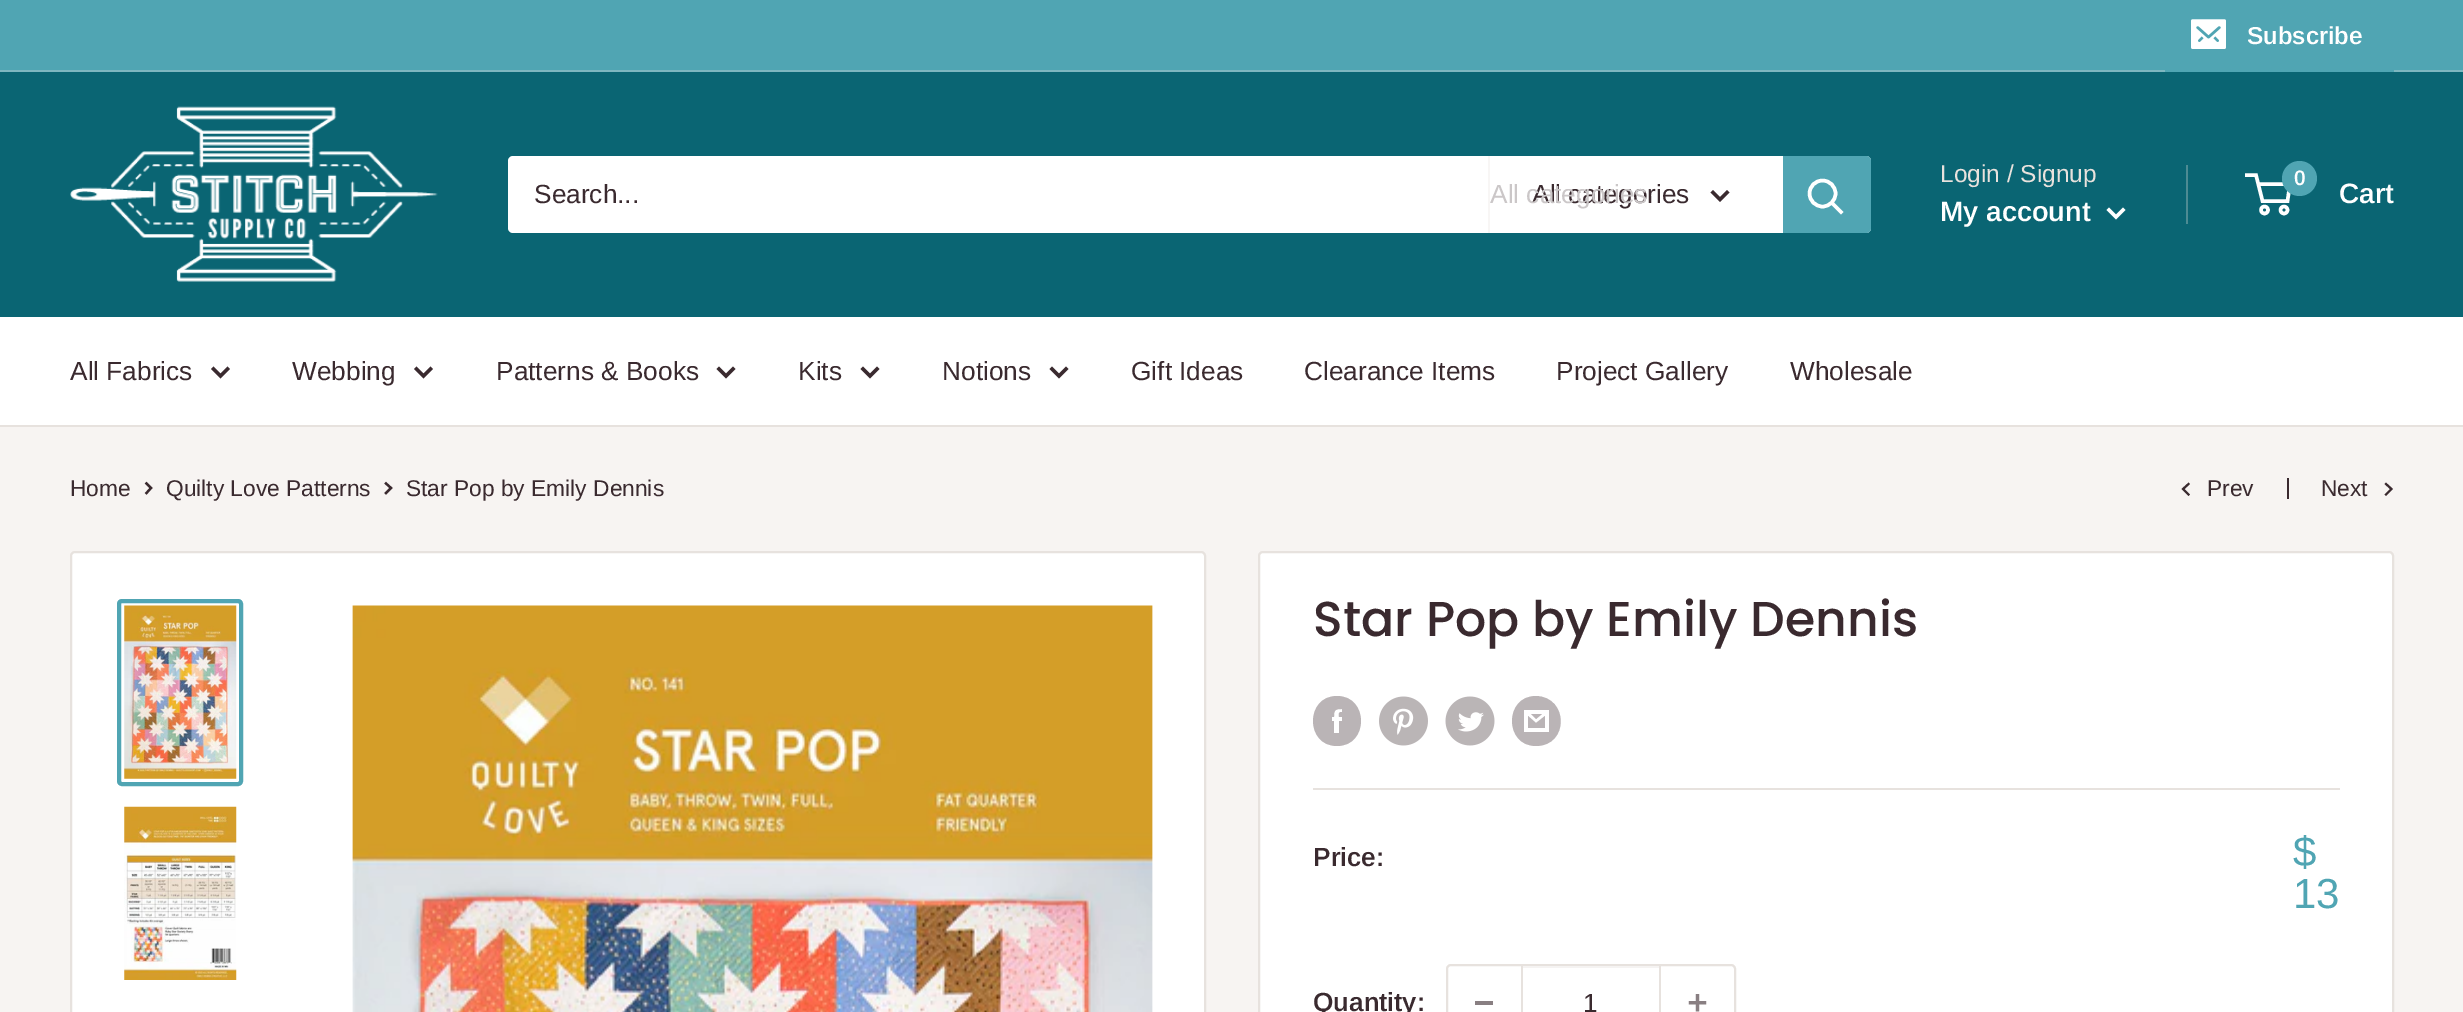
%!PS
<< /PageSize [2463 1012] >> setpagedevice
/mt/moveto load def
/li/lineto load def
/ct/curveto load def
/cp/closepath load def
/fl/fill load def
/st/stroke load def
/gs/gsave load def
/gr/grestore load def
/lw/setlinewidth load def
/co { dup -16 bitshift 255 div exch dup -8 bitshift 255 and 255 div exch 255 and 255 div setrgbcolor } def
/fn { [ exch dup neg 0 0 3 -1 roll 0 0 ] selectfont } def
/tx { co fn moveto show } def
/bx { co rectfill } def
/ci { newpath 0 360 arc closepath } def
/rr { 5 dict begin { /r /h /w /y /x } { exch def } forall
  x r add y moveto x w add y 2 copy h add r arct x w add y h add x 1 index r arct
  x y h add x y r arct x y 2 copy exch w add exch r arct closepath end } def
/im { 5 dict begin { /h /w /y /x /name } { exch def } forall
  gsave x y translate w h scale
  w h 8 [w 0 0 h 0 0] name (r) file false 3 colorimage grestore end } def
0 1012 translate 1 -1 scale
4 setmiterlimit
0 0 2463 1012 16#F7F4F2 bx
0 0 2463 70 16#50A5B3 bx
0 70 2463 2 16#7EB7C0 bx
2165 70 229 2 16#50A5B3 bx
(media/1.raw) 2191 19 35 30 im
0 72 2463 245 16#0A6573 bx
(media/2.raw) 70 106 368 176 im
16#FFFFFF co
508 156 1363 77 5 rr fl
1488 156 2 77 16#F8F6F5 bx
16#3A2A2F co
3.5 lw
2 setlinecap
1727 192.5 mt 1720 199.5 li 1713 192.5 li st
16#50A5B3 co
1783 156 mt 1866 156 li 1869 156 1871 158 1871 161 ct 1871 228 li 1871 231 1869 233 1866 233 ct 1783 233 li cp fl
16#FFFFFF co
1841 212 mt 1832 203 li st
0 setlinecap
1822.5 193.5 13 ci st
2186 165 2 59 16#4D8B93 bx
16#FFFFFF co
2 setlinecap
2123 210 mt 2116 217 li 2109 210 li st
0 setlinecap
2264.5 210 3.5 ci st
2284 210 3.5 ci st
2258 184 mt 2290 184 li 2287.5 201 li 2262.5 201 li 2256 175 li 2245 175 li st
16#50A5B3 co
2299.5 178.5 17.5 ci fl
0 317 2463 108 16#FFFFFF bx
0 425 2463 2 16#E7E2DE bx
16#3A2A2F co
2 setlinecap
227.5 369 mt 220.5 376 li 213.5 369 li st
430.5 369 mt 423.5 376 li 416.5 369 li st
733 369 mt 726 376 li 719 369 li st
877 369 mt 870 376 li 863 369 li st
1066 369 mt 1059 376 li 1052 369 li st
2.3 lw
146.5 483.5 mt 151 488 li 146.5 493 li st
386 483.5 mt 391 488 li 386 493 li st
2 lw
2188.5 494.5 mt 2183 489 li 2188.5 484 li st
2287 478 2 21 16#3A2A2F bx
2386 484 mt 2391.5 489 li 2386 494.5 li st
16#FFFFFF co
71 552 1134 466 4 rr gs fl gr
16#E7E2DE co
0 setlinecap
st
16#50A5B3 co
4 lw
119 601 122 183 3 rr st
(media/3.raw) 124 605 113 174 im
(media/4.raw) 124 806 113 174 im
(media/5.raw) 352 605 801 407 im
16#FFFFFF co
1259 552 1134 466 4 rr gs fl gr
16#E7E2DE co
2 lw
st
16#BAB4B6 co
1337 746 mt 1305 746 1305 696 1337 696 ct 1369 696 1369 746 1337 746 ct cp 1342 717 mt 1339 717 li 1339 714 1338 712 1342 712 ct 1342 709 li 1335 709 1334 710 1334 717 ct 1332 717 li 1332 721 li 1334 721 li 1334 733 li 1339 733 li 1339 721 li 1342 721 li cp eofill
(media/6.raw) 1379 696 49 50 im
(media/7.raw) 1445 696 50 50 im
1536 746 mt 1504 746 1504 696 1536 696 ct 1569 697 1569 746 1536 746 ct cp 1531 714 mt 1542 714 li 1536 719 li cp 1545 716 mt 1545 728 li 1528 728 li 1528 716 li 1536 723 li cp 1549 710 mt 1524 710 li 1524 732 li 1549 732 li cp fl
1313 788 1027 2 16#E7E2DE bx
1447 965 288 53 4 rr st
1475 1001 18 4 16#897F82 bx
1523 966 136 2 16#F5F3F2 bx
1659 966 2 46 16#E7E2DE bx
1521 966 2 46 16#E7E2DE bx
(media/8.raw) 1688 994 19 18 im
(Subscribe) 2247 44 /Arimo-SemiBold 24.5 16#FFFFFF tx
(Search...) 534 203 /Arimo-Regular 26.25 16#3A2A2F tx
(All categories) 1532 203 /Arimo-Regular 26.25 16#3A2A2F tx
(All categories) 1490 203 /Arimo-Regular 26.25 16#CBC7C8 tx
(Login / Signup) 1940 182 /Arimo-Regular 24.5 16#E9E2DD tx
(My account) 1940 221 /Arimo-SemiBold 28 16#FFFFFF tx
(0) 2294 185 /Arimo-SemiBold 21 16#FFFFFF tx
(Cart) 2339 203 /Arimo-SemiBold 28 16#FFFFFF tx
(All Fabrics) 70 380 /Arimo-Regular 26.25 16#3A2A2F tx
(Webbing) 292 380 /Arimo-Regular 26.25 16#3A2A2F tx
(Patterns & Books) 496 380 /Arimo-Regular 26.25 16#3A2A2F tx
(Kits) 798 380 /Arimo-Regular 26.25 16#3A2A2F tx
(Notions) 942 380 /Arimo-Regular 26.25 16#3A2A2F tx
(Gift Ideas) 1131 380 /Arimo-Regular 26.25 16#3A2A2F tx
(Clearance Items) 1304 380 /Arimo-Regular 26.25 16#3A2A2F tx
(Project Gallery) 1556 380 /Arimo-Regular 26.25 16#3A2A2F tx
(Wholesale) 1790 380 /Arimo-Regular 26.25 16#3A2A2F tx
(Home) 70 496 /Arimo-Regular 22.75 16#3A2A2F tx
(Quilty Love Patterns) 166 496 /Arimo-Regular 22.75 16#3A2A2F tx
(Star Pop by Emily Dennis) 406 496 /Arimo-Regular 22.75 16#3A2A2F tx
(Prev) 2207 496 /Arimo-Regular 22.75 16#3A2A2F tx
(Next) 2321 496 /Arimo-Regular 22.75 16#3A2A2F tx
(Star Pop by Emily Dennis) 1313 636 /Poppins-Medium 49 16#3A2A2F tx
(Price:) 1313 866 /Arimo-SemiBold 26.25 16#3A2A2F tx
($) 2293 866 /Arimo-Regular 42 16#50A5B3 tx
(13) 2293 908 /Arimo-Regular 42 16#50A5B3 tx
(Quantity:) 1313 1011 /Arimo-SemiBold 26.25 16#3A2A2F tx
(1) 1583 1012 /Arimo-Regular 26.25 16#3A2A2F tx
showpage
